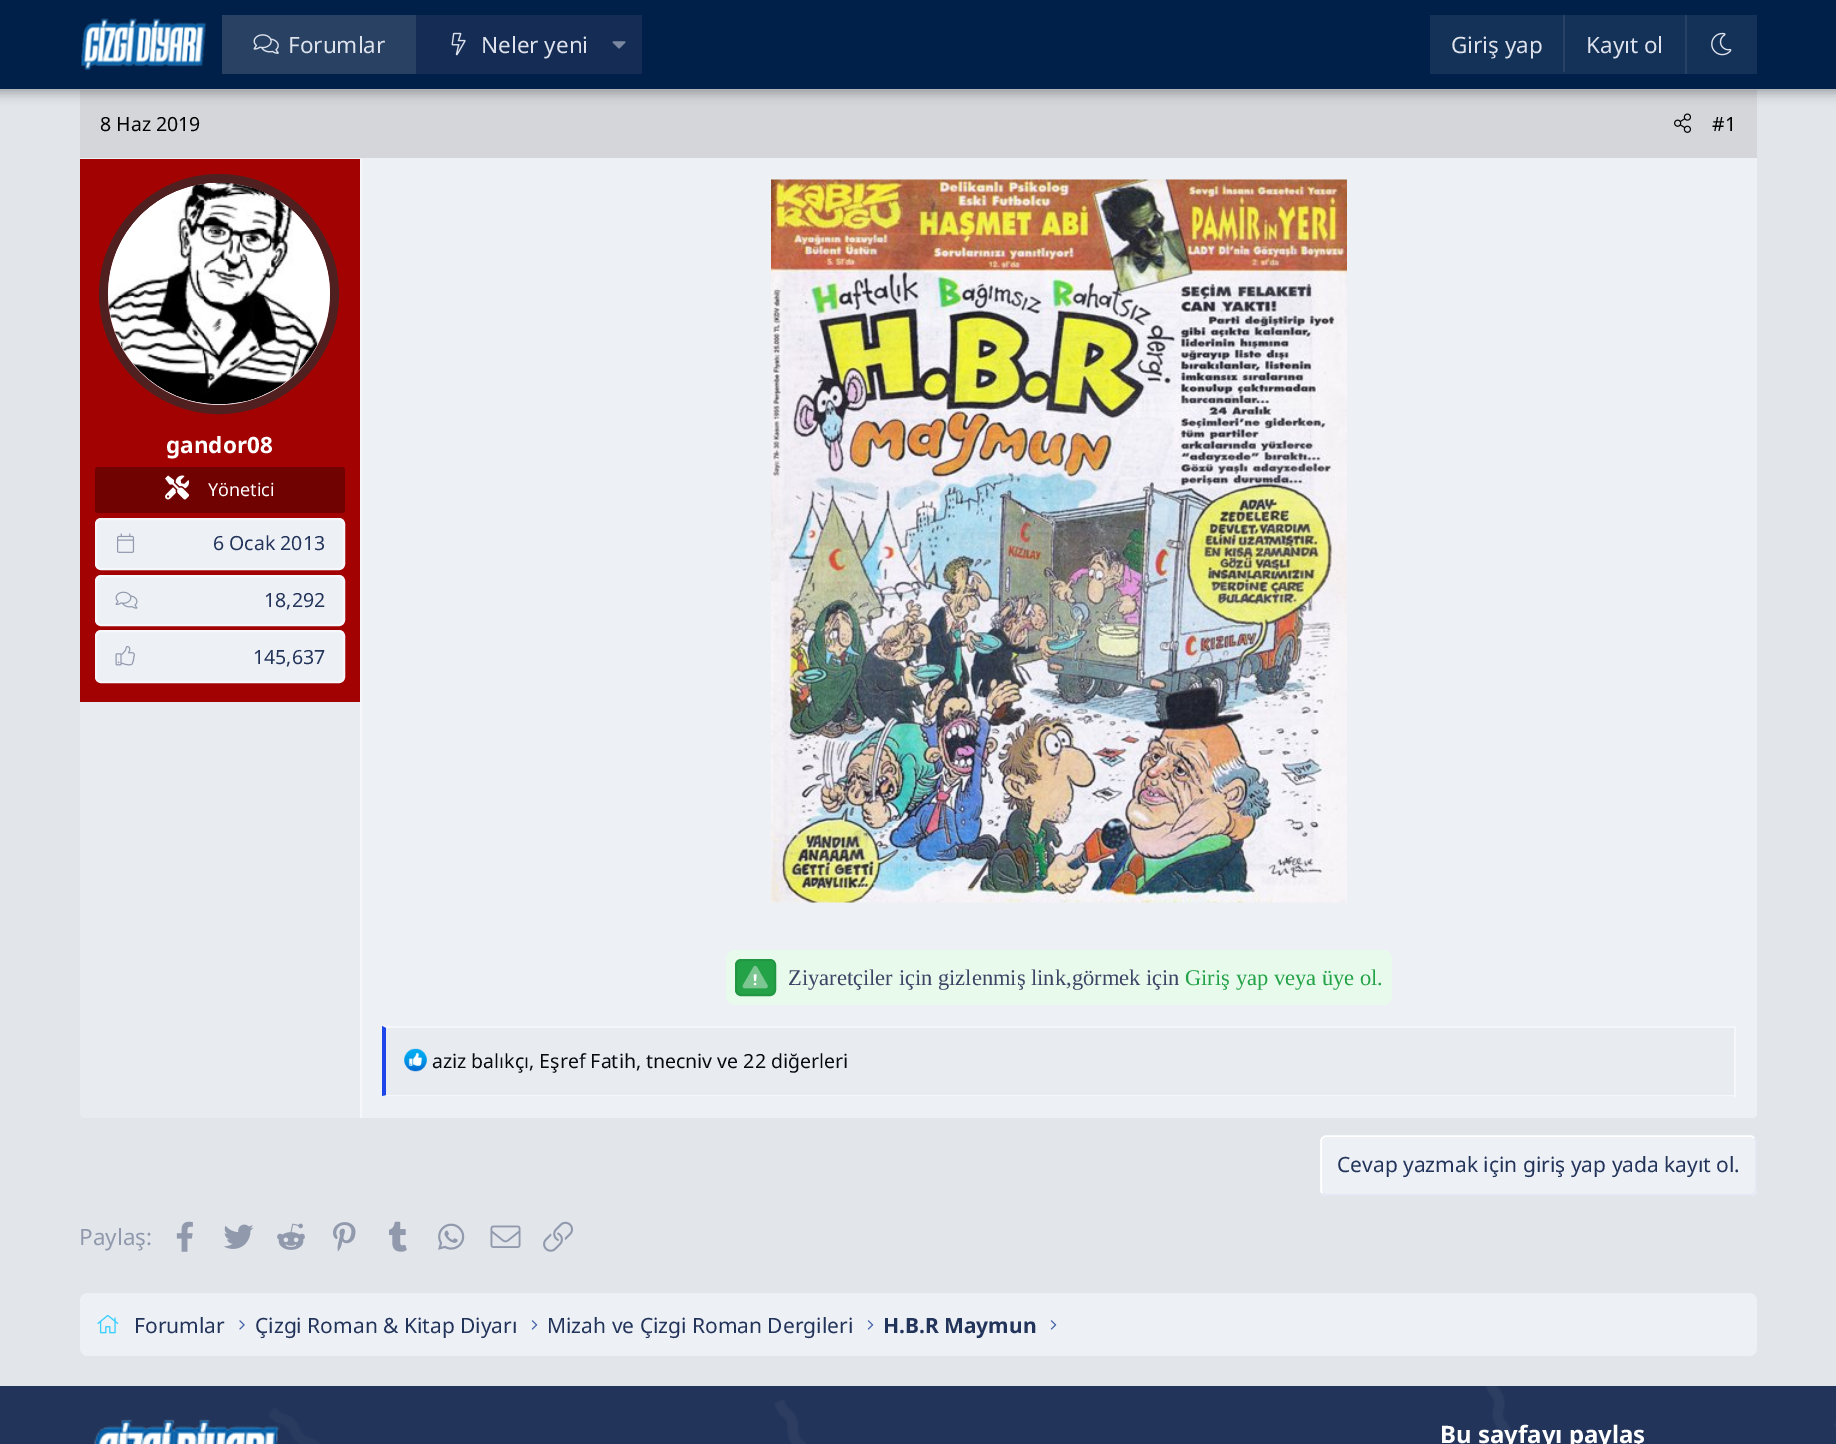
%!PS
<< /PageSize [1836 1444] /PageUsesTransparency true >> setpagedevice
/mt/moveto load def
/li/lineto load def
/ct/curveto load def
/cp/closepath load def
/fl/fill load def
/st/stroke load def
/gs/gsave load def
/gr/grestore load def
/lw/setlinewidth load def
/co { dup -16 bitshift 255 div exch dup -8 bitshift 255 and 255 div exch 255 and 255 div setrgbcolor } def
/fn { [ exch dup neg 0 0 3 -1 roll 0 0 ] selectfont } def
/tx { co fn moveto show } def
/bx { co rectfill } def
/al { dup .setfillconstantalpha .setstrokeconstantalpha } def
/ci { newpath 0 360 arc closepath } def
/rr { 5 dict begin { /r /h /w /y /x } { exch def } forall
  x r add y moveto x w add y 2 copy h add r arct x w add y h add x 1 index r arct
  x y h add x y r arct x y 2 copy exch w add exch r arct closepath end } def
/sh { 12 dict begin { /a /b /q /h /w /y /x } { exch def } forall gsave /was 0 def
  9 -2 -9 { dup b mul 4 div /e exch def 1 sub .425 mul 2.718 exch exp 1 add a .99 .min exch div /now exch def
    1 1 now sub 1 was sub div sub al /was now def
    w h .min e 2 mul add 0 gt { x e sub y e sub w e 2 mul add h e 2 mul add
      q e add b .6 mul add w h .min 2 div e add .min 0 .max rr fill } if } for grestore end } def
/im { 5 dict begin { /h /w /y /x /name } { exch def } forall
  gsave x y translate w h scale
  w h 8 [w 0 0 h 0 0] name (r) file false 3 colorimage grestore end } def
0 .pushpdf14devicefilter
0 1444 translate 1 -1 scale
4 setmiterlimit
0 0 1836 1444 16#E2E5EA bx
80 90 1677 68 16#D5D6DA bx
16#000000 co
-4 -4 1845 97 0 6 .3 sh
0 0 1836 89 16#00204A bx
(media/1.raw) 81 18 126 52 im
222 15 194 59 16#294264 bx
(media/2.raw) 253 34 26 20 im
416 15 226 59 16#152C54 bx
(media/3.raw) 451 32 15 24 im
(media/4.raw) 612 41 14 8 im
1430 15 327 59 16#143157 bx
1563 15 2 57 16#264163 bx
1685 15 2 59 16#264163 bx
(media/5.raw) 1711 32 21 24 im
80 158 1677 1 16#EDF0F5 bx
(media/6.raw) 1674 113 17 20 im
16#E8EBEF co
80 159 mt 362 159 li 362 1118 li 85 1118 li 82 1118 80 1116 80 1113 ct cp fl
360 159 2 959 16#F6F7FB bx
80 159 280 543 16#A30202 bx
16#501F20 co
9 lw
219 294 115.5 ci st
16#EDF0F5 co
219 294 111 ci fl
(media/7.raw) 108 182 222 223 im
16#710202 co
95 467 250 46 3 rr fl
(media/8.raw) 165 475 25 25 im
16#EDF0F5 co
96 519 248 50 5 rr gs fl gr
16#F6F7FB co
2 lw
st
(media/9.raw) 117 533 18 20 im
16#EDF0F5 co
96 576 248 49 5 rr gs fl gr
16#F6F7FB co
st
(media/10.raw) 115 591 23 18 im
16#EDF0F5 co
96 631 248 51 5 rr gs fl gr
16#F6F7FB co
st
(media/11.raw) 115 646 20 20 im
16#EDF0F5 co
362 159 mt 1757 159 li 1757 1113 li 1757 1116 1755 1118 1752 1118 ct 362 1118 li cp fl
(media/12.raw) 771 179 576 724 im
16#E7FAEC co
726 950 666 55 9 rr fl
16#24A247 co
736 960 39 35 5 rr gs fl gr
16#229743 co
st
(media/14.raw) 753 974 4 12 im
(media/13.raw) 742 965 26 24 im
386 1028 1348 67 16#E8EBEF bx
16#F6F7FB co
382 1026 mt 1736 1026 li 1734 1028 li 386 1028 li cp fl
1734 1026 2 71 16#F6F7FB bx
1736 1096 mt 382 1096 li 386 1095 li 1734 1095 li cp fl
16#1C46EA co
382 1096 mt 382 1026 li 386 1028 li 386 1095 li cp fl
(media/15.raw) 404 1048 23 24 im
16#EDF0F5 co
1320 1136 437 60 6 rr fl
16#E4E7F3 co
1.5 lw
1754 1138 mt 1755 1139 1756 1140 1756 1141.5 ct 1756 1189.5 li 1756 1191 1755 1192 1754 1193 ct 1753 1194 1752 1195 1750.5 1195 ct 1326 1195 li 1324.5 1195 1323.5 1194 1322.5 1193 ct st
16#FFFFFF co
1322.5 1193 mt 1321.5 1192 1321 1191 1321 1189.5 ct 1321 1141.5 li 1321 1140 1321.5 1139 1322.5 1138 ct 1323.5 1137 1324.5 1136 1326 1136 ct 1750.5 1136 li 1752 1136 1753 1137 1754 1138 ct st
(media/16.raw) 176 1221 17 31 im
(media/17.raw) 223 1224 31 25 im
(media/18.raw) 277 1223 28 27 im
(media/19.raw) 333 1222 23 30 im
(media/20.raw) 389 1221 18 31 im
(media/21.raw) 438 1223 27 27 im
(media/22.raw) 490 1225 31 23 im
(media/23.raw) 543 1221 30 31 im
16#EDF0F5 co
80 1293 1677 63 8 rr fl
(media/24.raw) 97 1314 22 20 im
(media/25.raw) 239 1320 6 10 im
(media/26.raw) 531 1320 7 10 im
(media/26.raw) 867 1320 7 10 im
(media/26.raw) 1050 1320 7 10 im
0 1386 1836 58 16#22345A bx
(media/27.raw) 269 1386 1567 58 im
(media/28.raw) 94 1419 186 25 im
(Forumlar) 288 53 /NotoSans-Regular 22.5 16#DDE2EC tx
(Neler yeni) 481 53 /NotoSans-Regular 22.5 16#DDE2EC tx
(Giriş yap) 1451 53 /NotoSans-Regular 22.5 16#DDE2EC tx
(Kayıt ol) 1586 53 /NotoSans-Regular 22.5 16#DDE2EC tx
(8 Haz 2019) 100 131 /NotoSans-Regular 19.5 16#000000 tx
(#1) 1712 131 /NotoSans-Regular 19.5 16#000000 tx
(gandor08) 166 453 /NotoSans-Bold 22.5 16#FFFFFF tx
(Yönetici) 208 496 /NotoSans-Regular 18 16#FFFFFF tx
(6 Ocak 2013) 213 550 /NotoSans-Regular 19.5 16#23345B tx
(18,292) 264 607 /NotoSans-Regular 19.5 16#23345B tx
(145,637) 253 664 /NotoSans-Regular 19.5 16#23345B tx
(Ziyaretçiler için gizlenmiş link,görmek için) 788 985 /LiberationSerif-Regular 22.5 16#3D4465 tx
(Giriş yap veya üye ol.) 1185 985 /LiberationSerif-Regular 22.5 16#24A247 tx
(aziz balıkçı, Eşref Fatih, tnecniv ve 22 diğerleri) 432 1068 /NotoSans-Regular 19.5 16#070A11 tx
(Cevap yazmak için giriş yap yada kayıt ol.) 1337 1172 /NotoSans-Regular 21 16#23345B tx
(Paylaş:) 79 1245 /NotoSans-Regular 22.5 16#9199AD tx
(Forumlar) 134 1333 /NotoSans-Regular 21 16#23345B tx
(Çizgi Roman & Kitap Diyarı) 255 1333 /NotoSans-Regular 21 16#23345B tx
(Mizah ve Çizgi Roman Dergileri) 547 1333 /NotoSans-Regular 21 16#23345B tx
(H.B.R Maymun) 883 1333 /NotoSans-Bold 21 16#23345B tx
(Bu sayfayı paylaş) 1440 1443 /NotoSans-Bold 24 16#FFFFFF tx
.poppdf14devicefilter showpage
